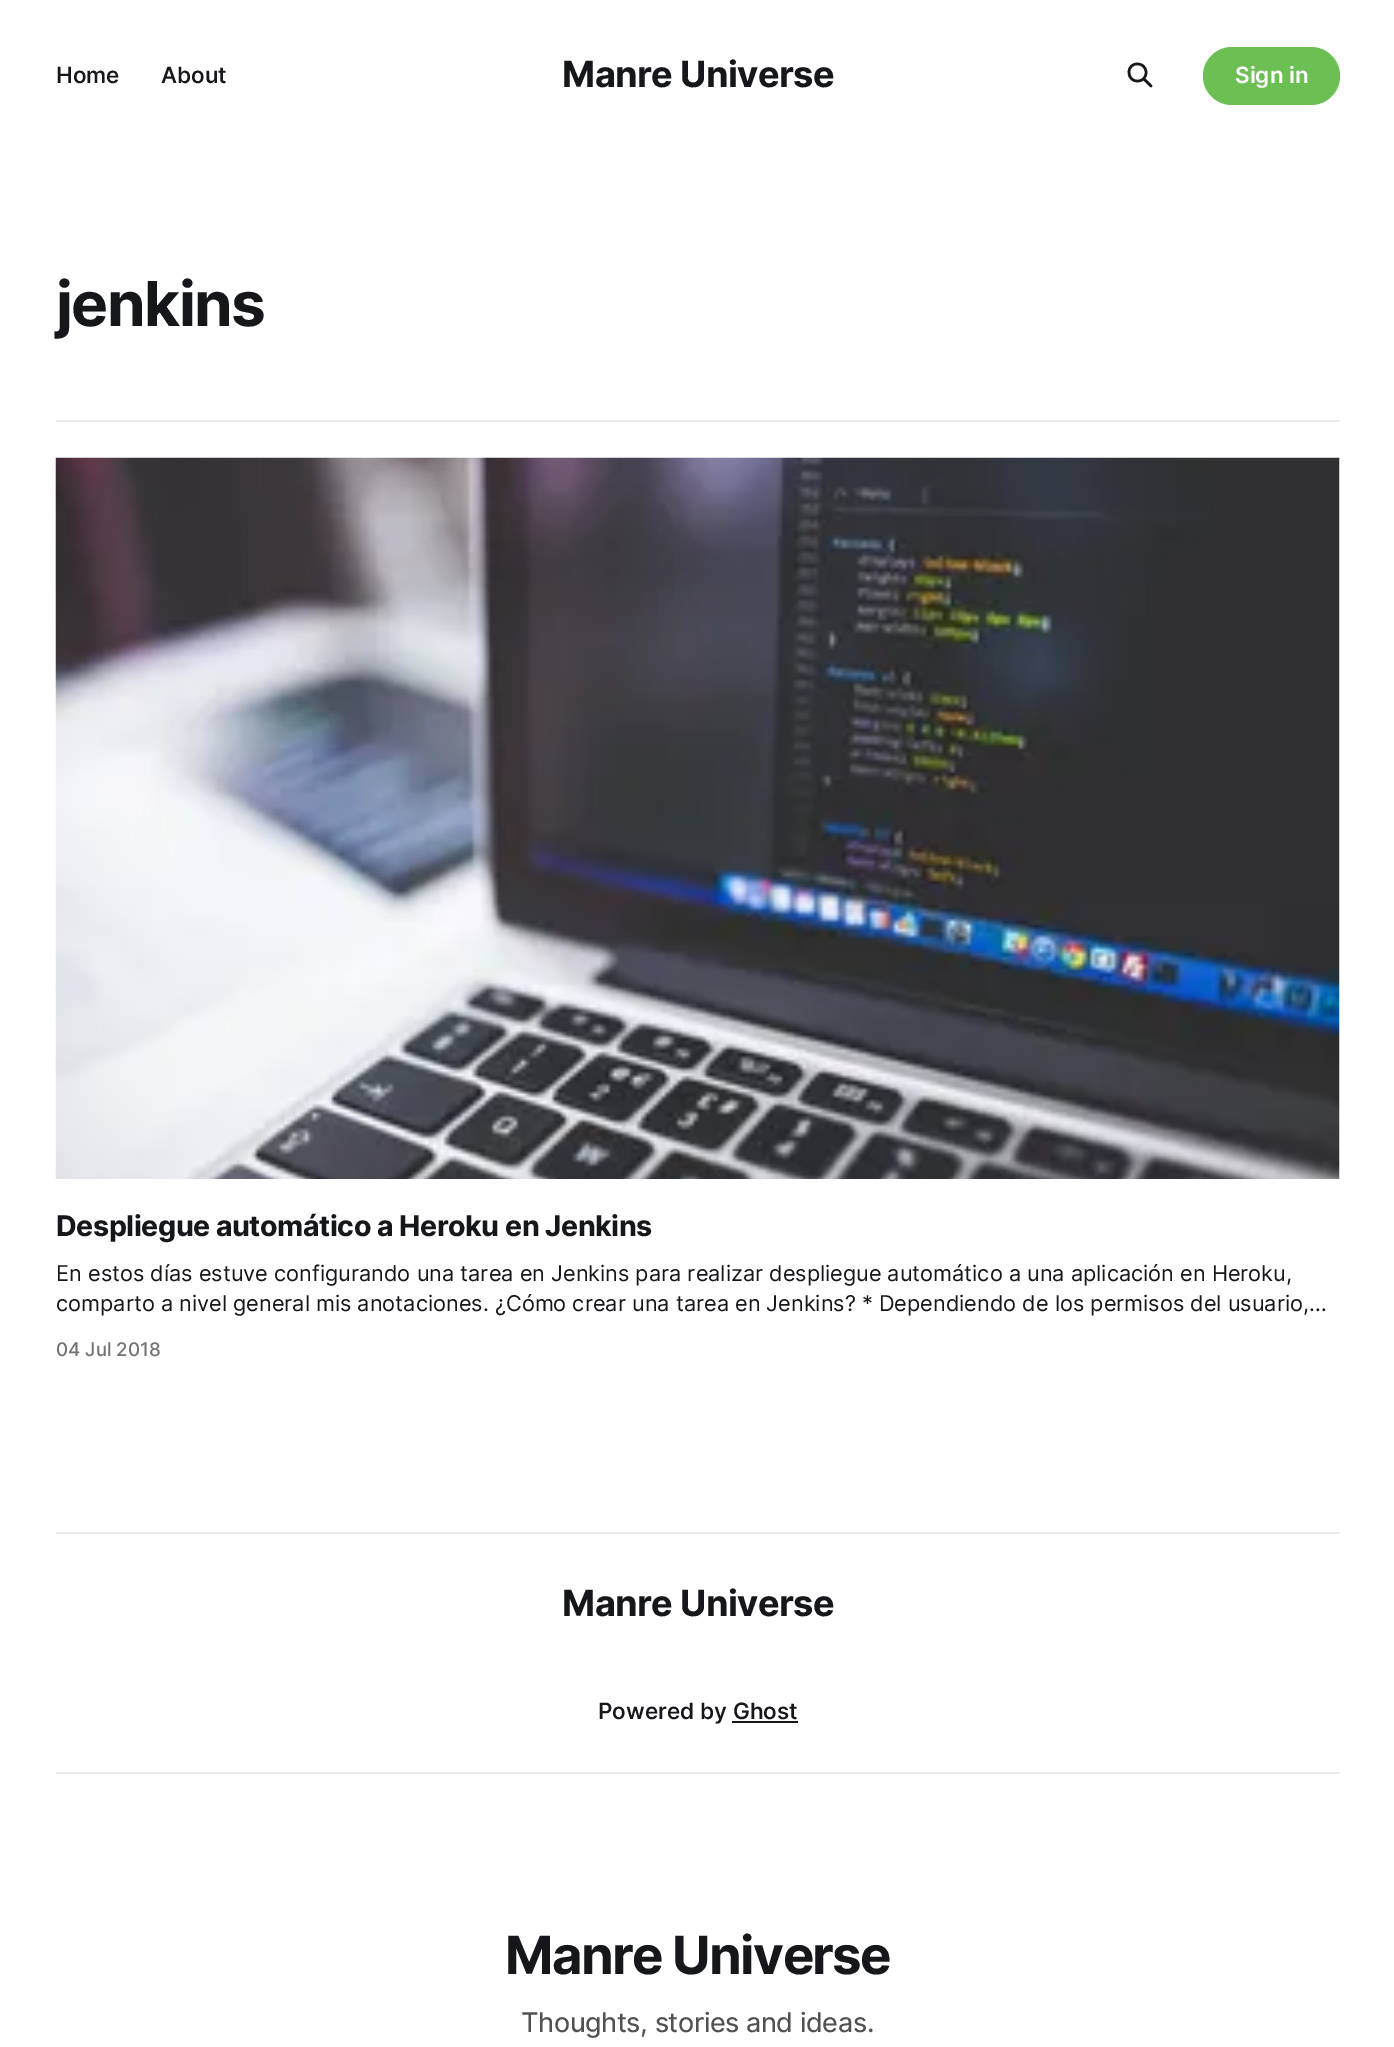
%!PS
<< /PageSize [1394 2047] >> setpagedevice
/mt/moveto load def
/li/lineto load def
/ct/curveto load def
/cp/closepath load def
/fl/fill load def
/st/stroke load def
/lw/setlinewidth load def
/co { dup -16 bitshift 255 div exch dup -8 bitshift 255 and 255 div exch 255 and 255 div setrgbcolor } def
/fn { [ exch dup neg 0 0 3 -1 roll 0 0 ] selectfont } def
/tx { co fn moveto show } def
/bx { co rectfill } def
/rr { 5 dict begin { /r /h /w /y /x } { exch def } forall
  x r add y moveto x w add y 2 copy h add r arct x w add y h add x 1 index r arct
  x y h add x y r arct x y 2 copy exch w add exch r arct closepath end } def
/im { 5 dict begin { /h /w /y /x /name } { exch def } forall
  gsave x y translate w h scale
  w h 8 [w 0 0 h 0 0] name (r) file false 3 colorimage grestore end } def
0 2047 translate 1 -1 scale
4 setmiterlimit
0 0 1394 2047 16#FFFFFF bx
16#15171A co
2.5 lw
1 setlinecap
1 setlinejoin
1151 86 mt 1144 79 li 1146 72.5 mt 1146 84 1129 84 1129 72.5 ct 1128.5 61 1146 61 1146 72.5 ct cp st
16#6CC053 co
1203 47 137 58 29 rr fl
56 420 1284 2 16#EBEBEB bx
(media/1.raw) 55 457 1285 722 im
56 1532 1284 2 16#EBEBEB bx
56 1772 1284 2 16#EBEBEB bx
732 1721 66 2 16#15171A bx
(Home) 56 83 /Inter-Medium 22.5 16#15171A tx
(About) 161 83 /Inter-Medium 22.5 16#15171A tx
/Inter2-Bold 36 fn
562 87 mt -.5 0 (Manre Universe) ashow
(Sign in) 1235 83 /Inter-SemiBold 22.5 16#FFFFFF tx
/Inter-Bold 62 fn
16#15171A co
56 326 mt -1.5 0 (jenkins) ashow
/Inter2-Bold 28.5 fn
56 1236 mt -.4 0 (Despliegue automático a Heroku en Jenkins) ashow
(En estos días estuve configurando una tarea en Jenkins para realizar despliegue automático a una aplicación en Heroku,) 56 1281 /Inter-Regular 21.75 16#15171A tx
(comparto a nivel general mis anotaciones. ¿Cómo crear una tarea en Jenkins? * Dependiendo de los permisos del usuario,…) 56 1311 /Inter-Regular 21.75 16#15171A tx
(04 Jul 2018) 56 1356 /Inter2-Medium 18.75 16#737373 tx
/Inter2-Bold 36 fn
16#15171A co
562 1616 mt -.5 0 (Manre Universe) ashow
(Powered by Ghost) 598 1719 /Inter-Medium 22.5 16#15171A tx
/Inter-Bold 52.75 fn
505 1974 mt -1.6 0 (Manre Universe) ashow
/Inter2-Regular 27 fn
16#505153 co
521 2032 mt -.4 0 (Thoughts, stories and ideas.) ashow
showpage
